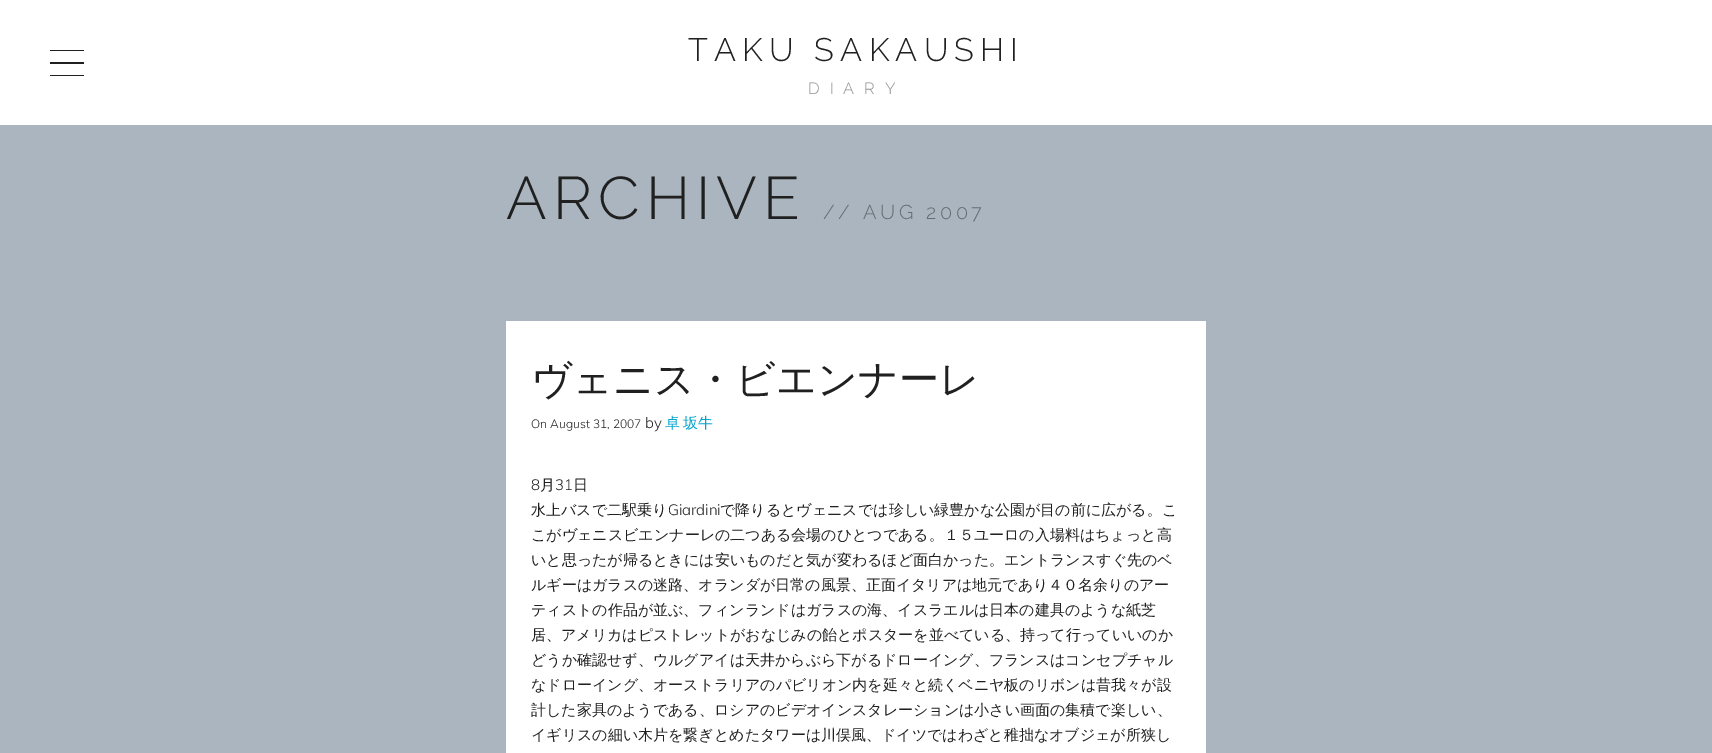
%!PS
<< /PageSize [1712 753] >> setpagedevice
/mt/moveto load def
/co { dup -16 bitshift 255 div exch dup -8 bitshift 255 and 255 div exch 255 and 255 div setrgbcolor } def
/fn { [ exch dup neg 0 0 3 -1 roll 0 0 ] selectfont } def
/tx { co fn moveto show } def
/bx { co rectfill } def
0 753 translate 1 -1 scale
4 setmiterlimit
0 0 1712 753 16#AAB5BF bx
0 0 1712 125 16#FFFFFF bx
50 75 34 1 16#202020 bx
50 50 34 1 16#202020 bx
50 62 34 2 16#202020 bx
506 321 700 432 16#FFFFFF bx
/Raleway-Light 32.5 fn
16#202020 co
688 61 mt 6.25 0 (TAKU SAKAUSHI) ashow
/Raleway-Light 16.25 fn
16#909090 co
808 94 mt 10 0 (DIARY) ashow
/Raleway-Light 60 fn
16#202020 co
506 219 mt 6.25 0 (ARCHIVE) ashow
/Raleway-Light 20 fn
16#656B70 co
823 219 mt 3.75 0 (// AUG 2007) ashow
(ヴェニス・ビエンナーレ) 531 393 /WenQuanYiZenHei-Medium 40 16#202020 tx
(On August 31, 2007) 531 428 /Muli-Light 12 16#202020 tx
(by) 645 428 /Muli-Light 15 16#202020 tx
/WenQuanYiZenHei-Medium 15 fn
16#00A3CC co
665 428 mt -1 0 32 (卓 坂牛) widthshow
(8) 531 490 /Muli-Light 15 16#202020 tx
(月) 540 490 /WenQuanYiZenHei-Medium 15 16#202020 tx
(31) 555 490 /Muli-Light 15 16#202020 tx
(日) 573 490 /WenQuanYiZenHei-Medium 15 16#202020 tx
(水上バスで二駅乗り) 531 515 /WenQuanYiZenHei-Medium 15 16#202020 tx
(Giardini) 668 515 /Muli-Light 15 16#202020 tx
(で降りるとヴェニスでは珍しい緑豊かな公園が目の前に広がる。こ) 720 515 /WenQuanYiZenHei-Medium 15 16#202020 tx
(こがヴェニスビエンナーレの二つある会場のひとつである。１５ユーロの入場料はちょっと高) 531 540 /WenQuanYiZenHei-Medium 15 16#202020 tx
(いと思ったが帰るときには安いものだと気が変わるほど面白かった。エントランスすぐ先のベ) 531 565 /WenQuanYiZenHei-Medium 15 16#202020 tx
(ルギーはガラスの迷路、オランダが日常の風景、正面イタリアは地元であり４０名余りのアー) 531 590 /WenQuanYiZenHei-Medium 15 16#202020 tx
(ティストの作品が並ぶ、フィンランドはガラスの海、イスラエルは日本の建具のような紙芝) 531 615 /WenQuanYiZenHei-Medium 15 16#202020 tx
(居、アメリカはピストレットがおなじみの飴とポスターを並べている、持って行っていいのか) 531 640 /WenQuanYiZenHei-Medium 15 16#202020 tx
(どうか確認せず、ウルグアイは天井からぶら下がるドローイング、フランスはコンセプチャル) 531 665 /WenQuanYiZenHei-Medium 15 16#202020 tx
(なドローイング、オーストラリアのパビリオン内を延々と続くベニヤ板のリボンは昔我々が設) 531 690 /WenQuanYiZenHei-Medium 15 16#202020 tx
(計した家具のようである、ロシアのビデオインスタレーションは小さい画面の集積で楽しい、) 531 715 /WenQuanYiZenHei-Medium 15 16#202020 tx
(イギリスの細い木片を繋ぎとめたタワーは川俣風、ドイツではわざと稚拙なオブジェが所狭し) 531 740 /WenQuanYiZenHei-Medium 15 16#202020 tx
showpage
